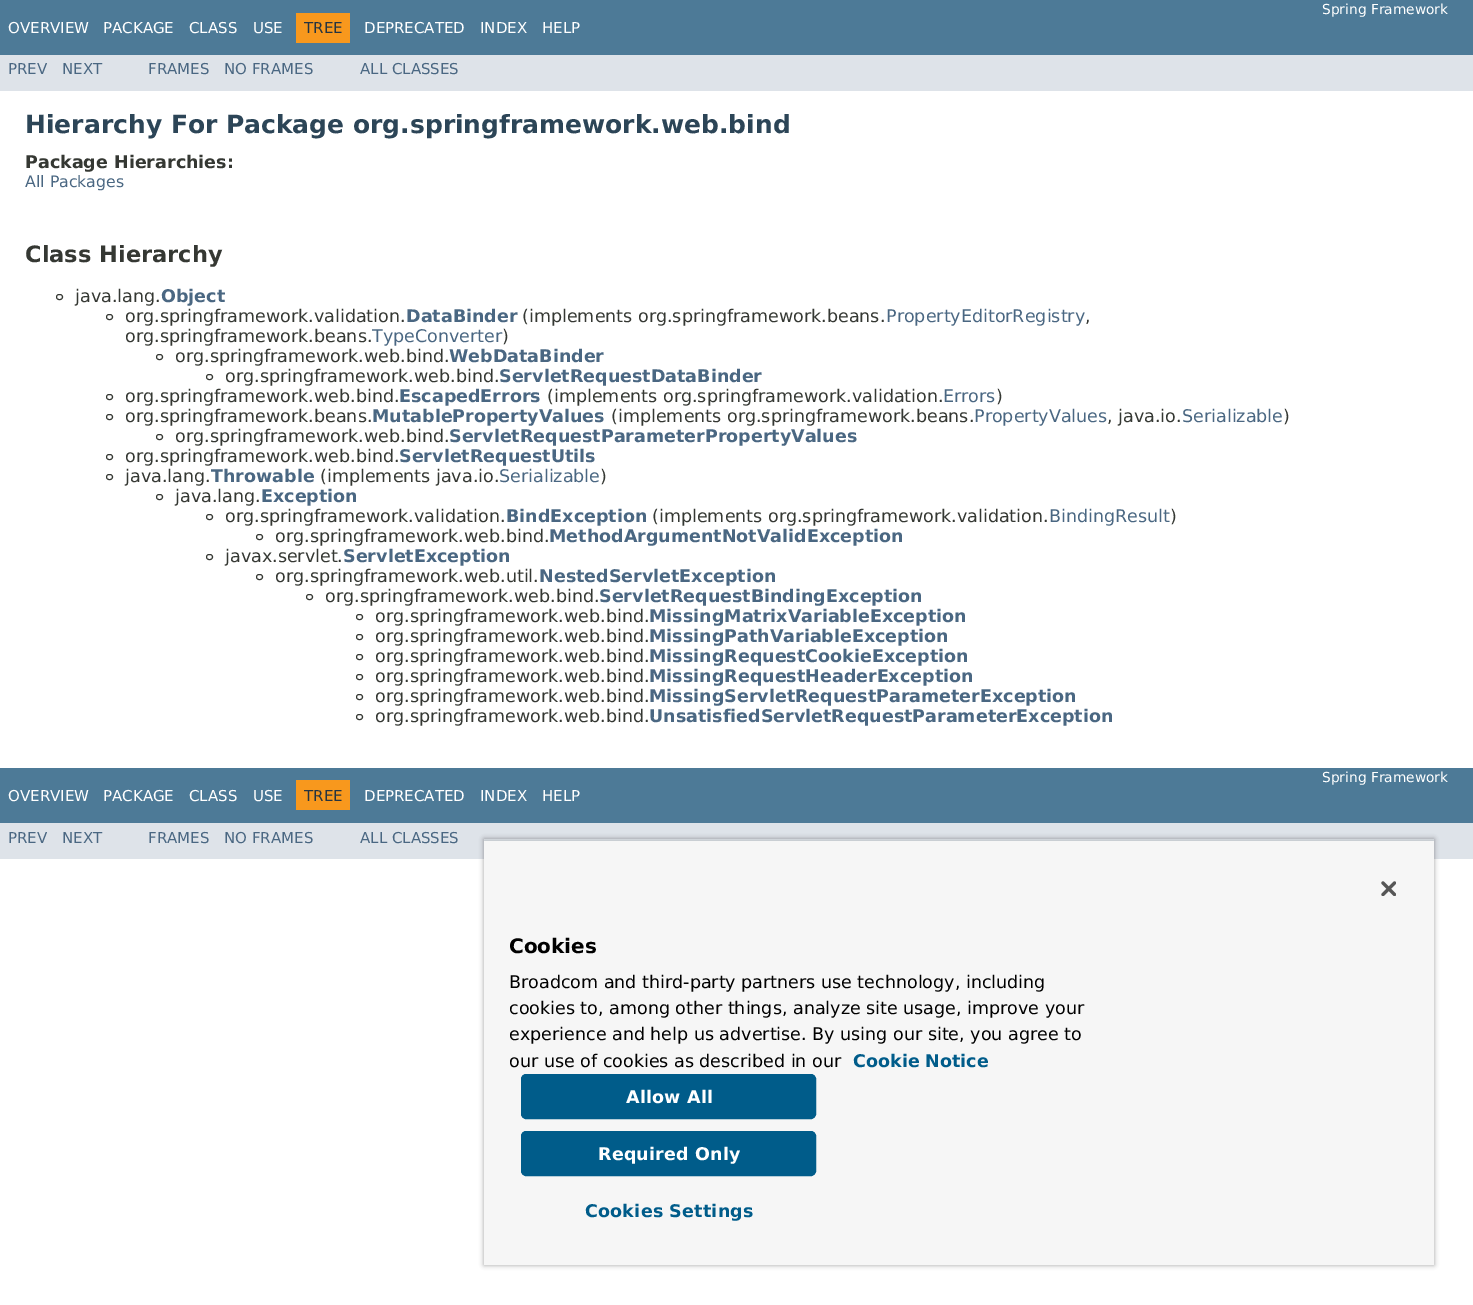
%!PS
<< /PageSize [1473 1305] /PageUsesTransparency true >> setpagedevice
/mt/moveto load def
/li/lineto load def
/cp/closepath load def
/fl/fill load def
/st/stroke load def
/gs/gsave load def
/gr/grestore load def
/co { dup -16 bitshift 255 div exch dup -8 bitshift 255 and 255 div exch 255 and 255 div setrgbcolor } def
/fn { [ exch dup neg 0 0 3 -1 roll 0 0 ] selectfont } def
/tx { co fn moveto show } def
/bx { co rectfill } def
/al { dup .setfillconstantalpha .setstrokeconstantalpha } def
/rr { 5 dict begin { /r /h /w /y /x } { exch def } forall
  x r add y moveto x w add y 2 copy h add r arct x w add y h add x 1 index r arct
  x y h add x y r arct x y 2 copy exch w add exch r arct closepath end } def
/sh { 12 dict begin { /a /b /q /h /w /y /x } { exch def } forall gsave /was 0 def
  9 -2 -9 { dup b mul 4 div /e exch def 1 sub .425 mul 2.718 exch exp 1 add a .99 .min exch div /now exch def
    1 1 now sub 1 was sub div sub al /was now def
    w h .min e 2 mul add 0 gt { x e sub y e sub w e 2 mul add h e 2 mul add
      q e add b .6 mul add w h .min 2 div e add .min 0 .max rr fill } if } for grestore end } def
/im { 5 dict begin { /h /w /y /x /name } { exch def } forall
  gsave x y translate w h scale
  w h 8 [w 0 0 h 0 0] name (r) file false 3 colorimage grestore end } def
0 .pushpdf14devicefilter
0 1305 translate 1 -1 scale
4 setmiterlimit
0 0 1473 1305 16#FFFFFF bx
0 0 1473 55 16#4D7A97 bx
296 13 54 30 16#F8981D bx
0 55 1473 36 16#DEE3E9 bx
16#353833 co
56.5 294.5 6 5 2.5 rr st
106.5 314.5 6 5 2.5 rr st
156.5 354.5 6 5 2.5 rr st
206.5 374.5 6 5 2.5 rr st
106.5 394.5 6 5 2.5 rr st
106.5 414.5 6 5 2.5 rr st
156.5 434.5 6 5 2.5 rr st
106.5 454.5 6 5 2.5 rr st
106.5 474.5 6 5 2.5 rr st
156.5 494.5 6 5 2.5 rr st
206.5 514.5 6 5 2.5 rr st
256.5 534.5 6 5 2.5 rr st
206.5 554.5 6 5 2.5 rr st
256.5 574.5 6 5 2.5 rr st
306.5 594.5 6 5 2.5 rr st
356.5 614.5 6 5 2.5 rr st
356.5 634.5 6 5 2.5 rr st
356.5 654.5 6 5 2.5 rr st
356.5 674.5 6 5 2.5 rr st
356.5 694.5 6 5 2.5 rr st
356.5 714.5 6 5 2.5 rr st
0 768 1473 55 16#4D7A97 bx
296 780 54 30 16#F8981D bx
0 823 1473 36 16#DEE3E9 bx
gs
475 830 mt 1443 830 li 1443 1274 li 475 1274 li cp 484 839 mt 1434 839 li 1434 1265 li 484 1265 li cp eoclip newpath
16#000000 co
484 839 950 426 0 2.5 .35 sh
gr
gs
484 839 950 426 rectclip
16#000000 co
484 841 950 424 0 2.5 .2 sh
gr
484 841 950 424 16#F6F6F6 bx
(media/1.raw) 1381 881 15 15 im
16#005C8A co
521.5 1074.5 294 44 4.5 rr gs fl gr
st
521.5 1131.5 294 44 4.5 rr gs fl gr
st
(Spring Framework) 1322 14 /DejaVuSans-Regular 13.75 16#FFFFFF tx
(OVERVIEW) 8 33 /DejaVuSans-Regular 15 16#FFFFFF tx
(PACKAGE) 103 33 /DejaVuSans-Regular 15 16#FFFFFF tx
(CLASS) 189 33 /DejaVuSans-Regular 15 16#FFFFFF tx
(USE) 253 33 /DejaVuSans-Regular 15 16#FFFFFF tx
(TREE) 304 33 /DejaVuSans-Regular 15 16#253441 tx
(DEPRECATED) 364 33 /DejaVuSans-Regular 15 16#FFFFFF tx
(INDEX) 480 33 /DejaVuSans-Regular 15 16#FFFFFF tx
(HELP) 542 33 /DejaVuSans-Regular 15 16#FFFFFF tx
(PREV) 8 74 /DejaVuSans-Regular 15 16#4A6782 tx
(NEXT) 62 74 /DejaVuSans-Regular 15 16#4A6782 tx
(FRAMES) 148 74 /DejaVuSans-Regular 15 16#4A6782 tx
(NO FRAMES) 224 74 /DejaVuSans-Regular 15 16#4A6782 tx
(ALL CLASSES) 360 74 /DejaVuSans-Regular 15 16#4A6782 tx
(Hierarchy For Package org.springframework.web.bind) 25 133 /DejaVuSans-Bold 25 16#2C4557 tx
(Package Hierarchies:) 25 168 /DejaVuSans-Bold 17.5 16#353833 tx
(All Packages) 25 187 /DejaVuSans-Regular 15.75 16#4A6782 tx
(Class Hierarchy) 25 262 /DejaVuSans-Bold 22.5 16#353833 tx
(java.lang.) 75 302 /DejaVuSans-Regular 17.5 16#353833 tx
(Object) 161 302 /DejaVuSans-Bold 17.5 16#4A6782 tx
(org.springframework.validation.) 125 322 /DejaVuSans-Regular 17.5 16#353833 tx
(DataBinder) 406 322 /DejaVuSans-Bold 17.5 16#4A6782 tx
(\(implements org.springframework.beans.) 522 322 /DejaVuSans-Regular 17.5 16#353833 tx
(PropertyEditorRegistry) 886 322 /DejaVuSans-Regular 17.5 16#4A6782 tx
(,) 1085 322 /DejaVuSans-Regular 17.5 16#353833 tx
(org.springframework.beans.) 125 342 /DejaVuSans-Regular 17.5 16#353833 tx
(TypeConverter) 372 342 /DejaVuSans-Regular 17.5 16#4A6782 tx
(\)) 502 342 /DejaVuSans-Regular 17.5 16#353833 tx
(org.springframework.web.bind.) 175 362 /DejaVuSans-Regular 17.5 16#353833 tx
(WebDataBinder) 449 362 /DejaVuSans-Bold 17.5 16#4A6782 tx
(org.springframework.web.bind.) 225 382 /DejaVuSans-Regular 17.5 16#353833 tx
(ServletRequestDataBinder) 499 382 /DejaVuSans-Bold 17.5 16#4A6782 tx
(org.springframework.web.bind.) 125 402 /DejaVuSans-Regular 17.5 16#353833 tx
(EscapedErrors) 399 402 /DejaVuSans-Bold 17.5 16#4A6782 tx
(\(implements org.springframework.validation.) 547 402 /DejaVuSans-Regular 17.5 16#353833 tx
(Errors) 943 402 /DejaVuSans-Regular 17.5 16#4A6782 tx
(\)) 996 402 /DejaVuSans-Regular 17.5 16#353833 tx
(org.springframework.beans.) 125 422 /DejaVuSans-Regular 17.5 16#353833 tx
(MutablePropertyValues) 372 422 /DejaVuSans-Bold 17.5 16#4A6782 tx
(\(implements org.springframework.beans.) 611 422 /DejaVuSans-Regular 17.5 16#353833 tx
(PropertyValues) 974 422 /DejaVuSans-Regular 17.5 16#4A6782 tx
(, java.io.) 1107 422 /DejaVuSans-Regular 17.5 16#353833 tx
(Serializable) 1182 422 /DejaVuSans-Regular 17.5 16#4A6782 tx
(\)) 1283 422 /DejaVuSans-Regular 17.5 16#353833 tx
(org.springframework.web.bind.) 175 442 /DejaVuSans-Regular 17.5 16#353833 tx
(ServletRequestParameterPropertyValues) 449 442 /DejaVuSans-Bold 17.5 16#4A6782 tx
(org.springframework.web.bind.) 125 462 /DejaVuSans-Regular 17.5 16#353833 tx
(ServletRequestUtils) 399 462 /DejaVuSans-Bold 17.5 16#4A6782 tx
(java.lang.) 125 482 /DejaVuSans-Regular 17.5 16#353833 tx
(Throwable) 211 482 /DejaVuSans-Bold 17.5 16#4A6782 tx
(\(implements java.io.) 320 482 /DejaVuSans-Regular 17.5 16#353833 tx
(Serializable) 499 482 /DejaVuSans-Regular 17.5 16#4A6782 tx
(\)) 600 482 /DejaVuSans-Regular 17.5 16#353833 tx
(java.lang.) 175 502 /DejaVuSans-Regular 17.5 16#353833 tx
(Exception) 261 502 /DejaVuSans-Bold 17.5 16#4A6782 tx
(org.springframework.validation.) 225 522 /DejaVuSans-Regular 17.5 16#353833 tx
(BindException) 506 522 /DejaVuSans-Bold 17.5 16#4A6782 tx
(\(implements org.springframework.validation.) 652 522 /DejaVuSans-Regular 17.5 16#353833 tx
(BindingResult) 1049 522 /DejaVuSans-Regular 17.5 16#4A6782 tx
(\)) 1170 522 /DejaVuSans-Regular 17.5 16#353833 tx
(org.springframework.web.bind.) 275 542 /DejaVuSans-Regular 17.5 16#353833 tx
(MethodArgumentNotValidException) 549 542 /DejaVuSans-Bold 17.5 16#4A6782 tx
(javax.servlet.) 225 562 /DejaVuSans-Regular 17.5 16#353833 tx
(ServletException) 343 562 /DejaVuSans-Bold 17.5 16#4A6782 tx
(org.springframework.web.util.) 275 582 /DejaVuSans-Regular 17.5 16#353833 tx
(NestedServletException) 539 582 /DejaVuSans-Bold 17.5 16#4A6782 tx
(org.springframework.web.bind.) 325 602 /DejaVuSans-Regular 17.5 16#353833 tx
(ServletRequestBindingException) 599 602 /DejaVuSans-Bold 17.5 16#4A6782 tx
(org.springframework.web.bind.) 375 622 /DejaVuSans-Regular 17.5 16#353833 tx
(MissingMatrixVariableException) 649 622 /DejaVuSans-Bold 17.5 16#4A6782 tx
(org.springframework.web.bind.) 375 642 /DejaVuSans-Regular 17.5 16#353833 tx
(MissingPathVariableException) 649 642 /DejaVuSans-Bold 17.5 16#4A6782 tx
(org.springframework.web.bind.) 375 662 /DejaVuSans-Regular 17.5 16#353833 tx
(MissingRequestCookieException) 649 662 /DejaVuSans-Bold 17.5 16#4A6782 tx
(org.springframework.web.bind.) 375 682 /DejaVuSans-Regular 17.5 16#353833 tx
(MissingRequestHeaderException) 649 682 /DejaVuSans-Bold 17.5 16#4A6782 tx
(org.springframework.web.bind.) 375 702 /DejaVuSans-Regular 17.5 16#353833 tx
(MissingServletRequestParameterException) 649 702 /DejaVuSans-Bold 17.5 16#4A6782 tx
(org.springframework.web.bind.) 375 722 /DejaVuSans-Regular 17.5 16#353833 tx
(UnsatisfiedServletRequestParameterException) 649 722 /DejaVuSans-Bold 17.5 16#4A6782 tx
(Spring Framework) 1322 782 /DejaVuSans-Regular 13.75 16#FFFFFF tx
(OVERVIEW) 8 801 /DejaVuSans-Regular 15 16#FFFFFF tx
(PACKAGE) 103 801 /DejaVuSans-Regular 15 16#FFFFFF tx
(CLASS) 189 801 /DejaVuSans-Regular 15 16#FFFFFF tx
(USE) 253 801 /DejaVuSans-Regular 15 16#FFFFFF tx
(TREE) 304 801 /DejaVuSans-Regular 15 16#253441 tx
(DEPRECATED) 364 801 /DejaVuSans-Regular 15 16#FFFFFF tx
(INDEX) 480 801 /DejaVuSans-Regular 15 16#FFFFFF tx
(HELP) 542 801 /DejaVuSans-Regular 15 16#FFFFFF tx
(PREV) 8 843 /DejaVuSans-Regular 15 16#4A6782 tx
(NEXT) 62 843 /DejaVuSans-Regular 15 16#4A6782 tx
(FRAMES) 148 843 /DejaVuSans-Regular 15 16#4A6782 tx
(NO FRAMES) 224 843 /DejaVuSans-Regular 15 16#4A6782 tx
(ALL CLASSES) 360 843 /DejaVuSans-Regular 15 16#4A6782 tx
(Cookies) 509 953 /DejaVuSans-Bold 20 16#000000 tx
(Broadcom and third-party partners use technology, including) 509 988 /DejaVuSans-Regular 17.5 16#000000 tx
(cookies to, among other things, analyze site usage, improve your) 509 1014 /DejaVuSans-Regular 17.5 16#000000 tx
(experience and help us advertise. By using our site, you agree to) 509 1040 /DejaVuSans-Regular 17.5 16#000000 tx
(our use of cookies as described in our) 509 1067 /DejaVuSans-Regular 17.5 16#000000 tx
(Cookie Notice) 853 1067 /DejaVuSans-Bold 17.5 16#005C8A tx
16#FFFFFF co
626 1103 mt .2 0 (Allow All) ashow
598 1160 mt .2 0 (Required Only) ashow
16#005C8A co
585 1217 mt .2 0 (Cookies Settings) ashow
.poppdf14devicefilter showpage
